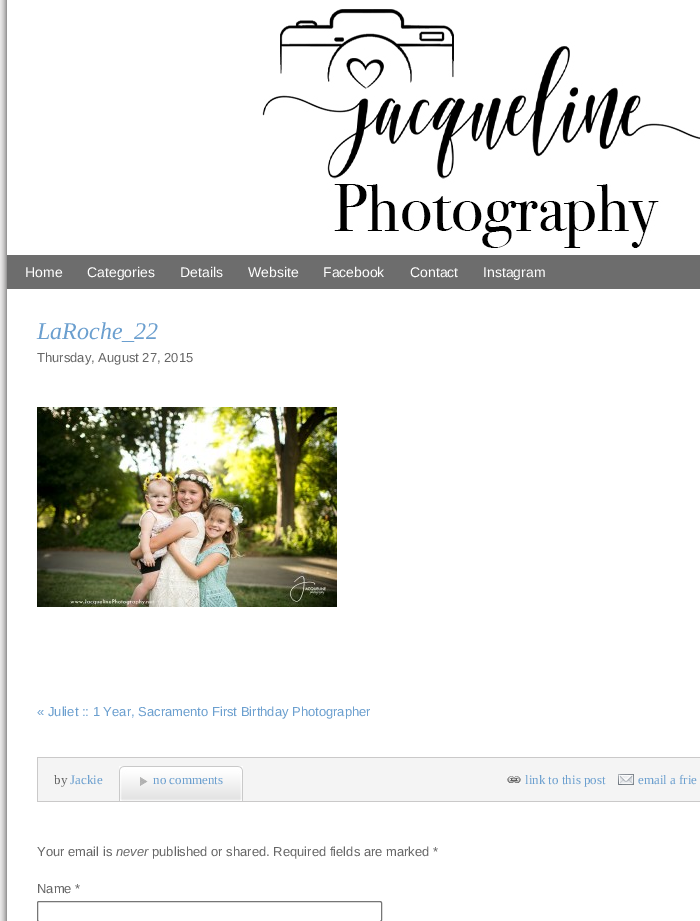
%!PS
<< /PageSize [700 921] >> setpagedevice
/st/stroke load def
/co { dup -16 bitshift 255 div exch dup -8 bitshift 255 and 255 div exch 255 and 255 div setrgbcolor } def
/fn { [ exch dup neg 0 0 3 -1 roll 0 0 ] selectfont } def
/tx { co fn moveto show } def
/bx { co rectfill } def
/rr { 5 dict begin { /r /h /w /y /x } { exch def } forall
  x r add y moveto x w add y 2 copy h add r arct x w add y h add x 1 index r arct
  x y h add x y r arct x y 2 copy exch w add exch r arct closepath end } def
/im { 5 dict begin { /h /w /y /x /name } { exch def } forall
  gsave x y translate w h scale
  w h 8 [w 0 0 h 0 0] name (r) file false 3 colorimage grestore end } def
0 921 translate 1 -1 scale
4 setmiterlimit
0 0 700 921 16#EEEDED bx
(media/1.raw) 0 0 7 921 im
7 0 693 255 16#FFFFFF bx
(media/2.raw) 262 9 438 239 im
7 255 693 34 16#6D6D6D bx
7 289 693 632 16#FFFFFF bx
(media/3.raw) 37 407 300 200 im
37 757 663 1 16#CAC9C9 bx
37 757 1 45 16#CAC9C9 bx
38 758 662 43 16#F4F4F4 bx
38 801 662 1 16#CAC9C9 bx
(media/4.raw) 119 766 94 35 im
(media/5.raw) 213 766 30 35 im
(media/6.raw) 140 777 8 9 im
(media/7.raw) 507 776 14 7 im
(media/8.raw) 618 774 16 11 im
16#767676 co
37.5 901.5 344 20 1.5 rr st
(Home) 25 277 /LiberationSans-Regular 14 16#FFFFFF tx
(Categories) 87 277 /LiberationSans-Regular 14 16#FFFFFF tx
(Details) 180 277 /LiberationSans-Regular 14 16#FFFFFF tx
(Website) 248 277 /LiberationSans-Regular 14 16#FFFFFF tx
(Facebook) 323 277 /LiberationSans-Regular 14 16#FFFFFF tx
(Contact) 410 277 /LiberationSans-Regular 14 16#FFFFFF tx
(Instagram) 483 277 /LiberationSans-Regular 14 16#FFFFFF tx
(LaRoche_22) 37 339 /LiberationSerif-Italic 24 16#6B9FCF tx
(Thursday, August 27, 2015) 37 362 /LiberationSans-Regular 13 16#666666 tx
(« Juliet :: 1 Year, Sacramento First Birthday Photographer) 37 716 /LiberationSans-Regular 13 16#6B9FCF tx
(by) 54 784 /LiberationSerif-Regular 13 16#666666 tx
(Jackie) 70 784 /LiberationSerif-Regular 13 16#6B9FCF tx
(no comments) 153 784 /LiberationSerif-Regular 13 16#6B9FCF tx
(link to this post) 525 784 /LiberationSerif-Regular 13 16#6B9FCF tx
(email a frie) 638 784 /LiberationSerif-Regular 13 16#6B9FCF tx
(Your email is) 37 856 /LiberationSans-Regular 13 16#666666 tx
(never) 116 856 /LiberationSans-Italic 13 16#666666 tx
(published or shared. Required fields are marked *) 152 856 /LiberationSans-Regular 13 16#666666 tx
(Name *) 37 893 /LiberationSans-Regular 13 16#666666 tx
showpage
